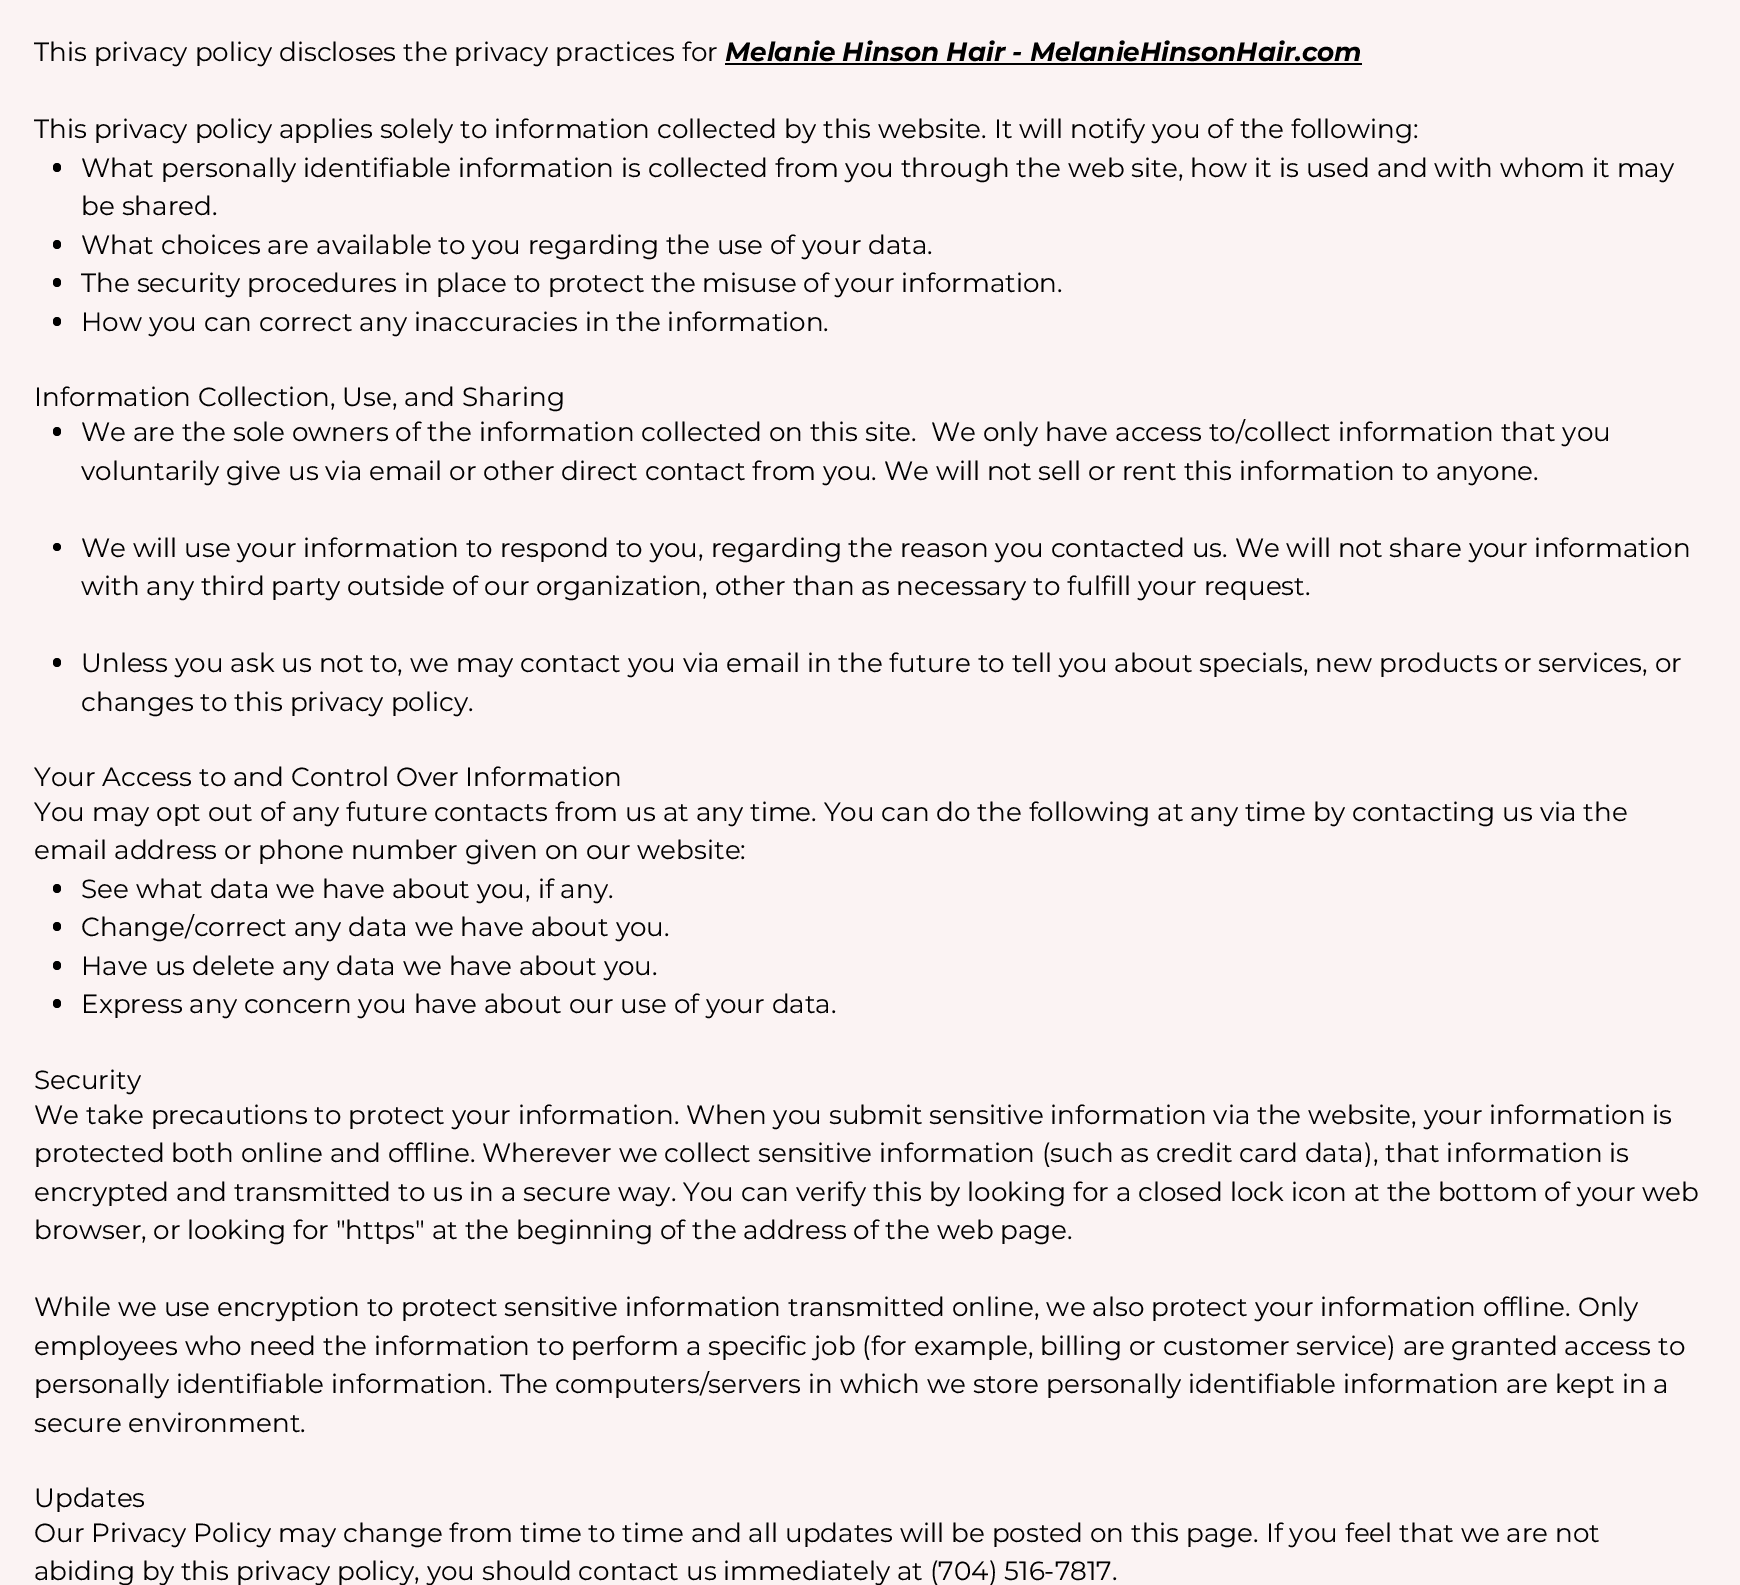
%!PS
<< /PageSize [1740 1585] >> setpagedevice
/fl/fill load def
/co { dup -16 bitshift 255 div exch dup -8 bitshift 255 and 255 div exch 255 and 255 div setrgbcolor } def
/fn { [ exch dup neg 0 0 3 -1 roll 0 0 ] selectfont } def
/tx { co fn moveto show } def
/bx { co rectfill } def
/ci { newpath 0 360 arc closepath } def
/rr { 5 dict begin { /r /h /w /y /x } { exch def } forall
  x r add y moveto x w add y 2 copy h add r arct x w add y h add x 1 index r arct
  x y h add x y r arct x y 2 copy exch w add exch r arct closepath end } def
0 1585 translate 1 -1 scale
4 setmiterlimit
0 0 1740 1585 16#FBF3F3 bx
725 63 637 2 16#000000 bx
53 163 8 9 4 rr fl
53 240 8 9 4 rr fl
53 278 8 9 4 rr fl
53 317 8 9 4 rr fl
53 427 8 9 4 rr fl
57 547 4 ci fl
53 658 8 9 4 rr fl
53 884 8 9 4 rr fl
53 922 8 9 4 rr fl
53 961 8 9 4 rr fl
53 999 8 9 4 rr fl
(This privacy policy discloses the privacy practices for) 34 61 /Montserrat-Regular 26.25 16#000000 tx
(Melanie Hinson Hair - MelanieHinsonHair.com) 725 61 /Montserrat-BoldItalic 26.25 16#000000 tx
(This privacy policy applies solely to information collected by this website. It will notify you of the following:) 34 138 /Montserrat-Regular 26.25 16#000000 tx
(What personally identifiable information is collected from you through the web site, how it is used and with whom it may) 81 177 /Montserrat-Regular 26.25 16#000000 tx
(be shared.) 81 215 /Montserrat-Regular 26.25 16#000000 tx
(What choices are available to you regarding the use of your data.) 81 254 /Montserrat-Regular 26.25 16#000000 tx
(The security procedures in place to protect the misuse of your information.) 81 292 /Montserrat-Regular 26.25 16#000000 tx
(How you can correct any inaccuracies in the information.) 81 331 /Montserrat-Regular 26.25 16#000000 tx
(Information Collection, Use, and Sharing) 34 406 /Montserrat-Regular 26.25 16#000000 tx
(We are the sole owners of the information collected on this site.  We only have access to/collect information that you) 81 441 /Montserrat-Regular 26.25 16#000000 tx
(voluntarily give us via email or other direct contact from you. We will not sell or rent this information to anyone.) 81 480 /Montserrat-Regular 26.25 16#000000 tx
(We will use your information to respond to you, regarding the reason you contacted us. We will not share your information) 81 557 /Montserrat-Regular 26.25 16#000000 tx
(with any third party outside of our organization, other than as necessary to fulfill your request.) 81 595 /Montserrat-Regular 26.25 16#000000 tx
(Unless you ask us not to, we may contact you via email in the future to tell you about specials, new products or services, or) 81 672 /Montserrat-Regular 26.25 16#000000 tx
(changes to this privacy policy.) 81 711 /Montserrat-Regular 26.25 16#000000 tx
(Your Access to and Control Over Information) 34 786 /Montserrat-Regular 26.25 16#000000 tx
(You may opt out of any future contacts from us at any time. You can do the following at any time by contacting us via the) 34 821 /Montserrat-Regular 26.25 16#000000 tx
(email address or phone number given on our website:) 34 859 /Montserrat-Regular 26.25 16#000000 tx
(See what data we have about you, if any.) 81 898 /Montserrat-Regular 26.25 16#000000 tx
(Change/correct any data we have about you.) 81 936 /Montserrat-Regular 26.25 16#000000 tx
(Have us delete any data we have about you.) 81 975 /Montserrat-Regular 26.25 16#000000 tx
(Express any concern you have about our use of your data.) 81 1013 /Montserrat-Regular 26.25 16#000000 tx
(Security) 34 1089 /Montserrat-Regular 26.25 16#000000 tx
(We take precautions to protect your information. When you submit sensitive information via the website, your information is) 34 1124 /Montserrat-Regular 26.25 16#000000 tx
(protected both online and offline. Wherever we collect sensitive information \(such as credit card data\), that information is) 34 1162 /Montserrat-Regular 26.25 16#000000 tx
(encrypted and transmitted to us in a secure way. You can verify this by looking for a closed lock icon at the bottom of your web) 34 1201 /Montserrat-Regular 26.25 16#000000 tx
(browser, or looking for "https" at the beginning of the address of the web page.) 34 1239 /Montserrat-Regular 26.25 16#000000 tx
(While we use encryption to protect sensitive information transmitted online, we also protect your information offline. Only) 34 1316 /Montserrat-Regular 26.25 16#000000 tx
(employees who need the information to perform a specific job \(for example, billing or customer service\) are granted access to) 34 1355 /Montserrat-Regular 26.25 16#000000 tx
(personally identifiable information. The computers/servers in which we store personally identifiable information are kept in a) 34 1393 /Montserrat-Regular 26.25 16#000000 tx
(secure environment.) 34 1432 /Montserrat-Regular 26.25 16#000000 tx
(Updates) 34 1507 /Montserrat-Regular 26.25 16#000000 tx
(Our Privacy Policy may change from time to time and all updates will be posted on this page. If you feel that we are not) 34 1542 /Montserrat-Regular 26.25 16#000000 tx
(abiding by this privacy policy, you should contact us immediately at \(704\) 516-7817.) 34 1580 /Montserrat-Regular 26.25 16#000000 tx
showpage
